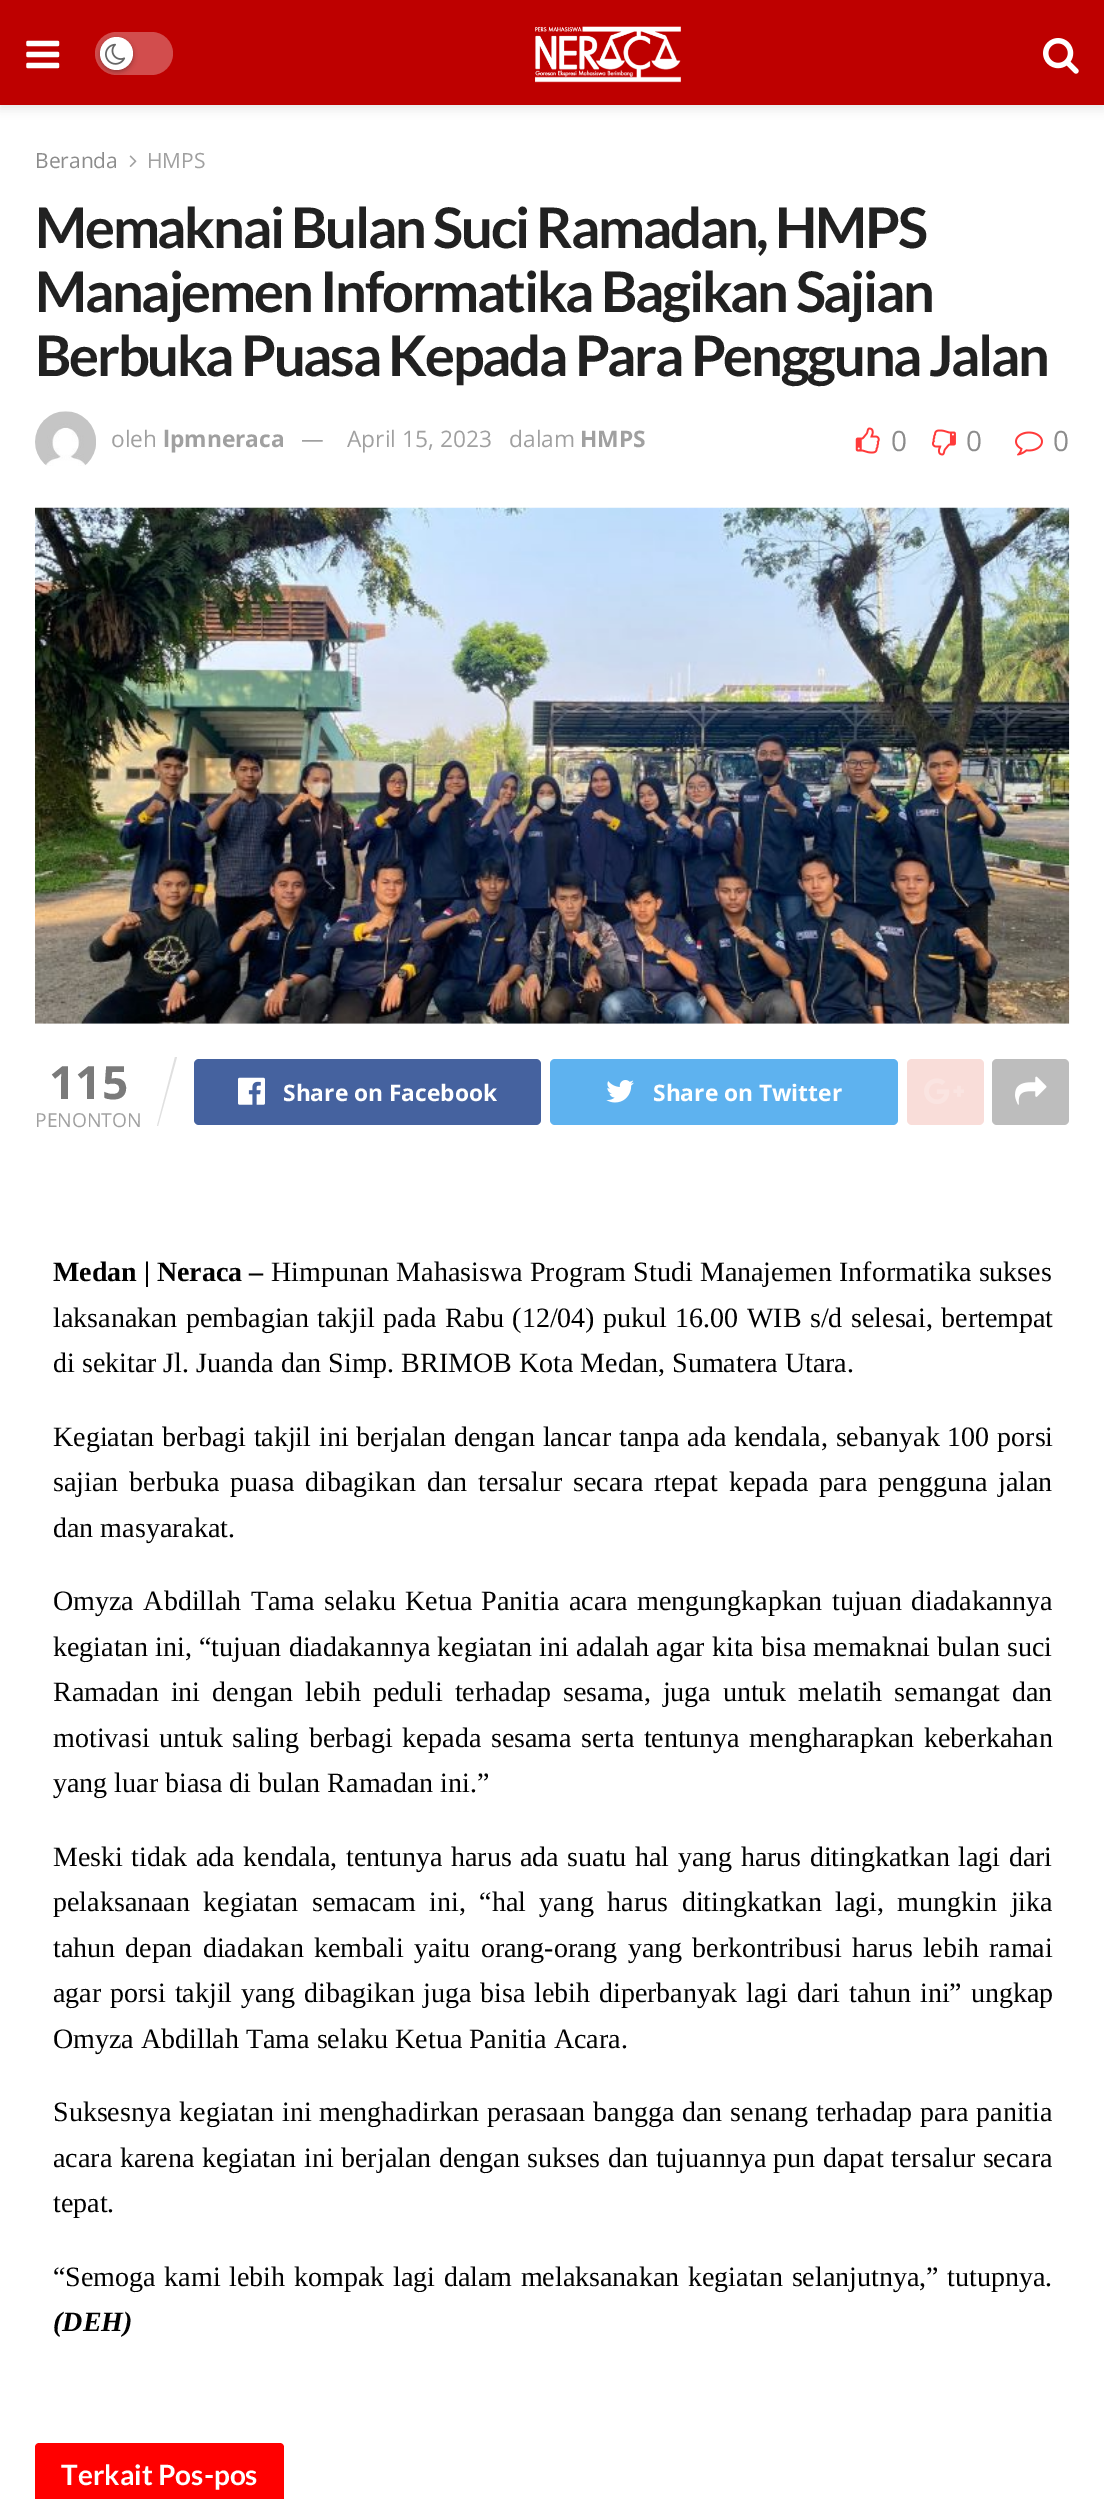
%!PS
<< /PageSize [1104 2499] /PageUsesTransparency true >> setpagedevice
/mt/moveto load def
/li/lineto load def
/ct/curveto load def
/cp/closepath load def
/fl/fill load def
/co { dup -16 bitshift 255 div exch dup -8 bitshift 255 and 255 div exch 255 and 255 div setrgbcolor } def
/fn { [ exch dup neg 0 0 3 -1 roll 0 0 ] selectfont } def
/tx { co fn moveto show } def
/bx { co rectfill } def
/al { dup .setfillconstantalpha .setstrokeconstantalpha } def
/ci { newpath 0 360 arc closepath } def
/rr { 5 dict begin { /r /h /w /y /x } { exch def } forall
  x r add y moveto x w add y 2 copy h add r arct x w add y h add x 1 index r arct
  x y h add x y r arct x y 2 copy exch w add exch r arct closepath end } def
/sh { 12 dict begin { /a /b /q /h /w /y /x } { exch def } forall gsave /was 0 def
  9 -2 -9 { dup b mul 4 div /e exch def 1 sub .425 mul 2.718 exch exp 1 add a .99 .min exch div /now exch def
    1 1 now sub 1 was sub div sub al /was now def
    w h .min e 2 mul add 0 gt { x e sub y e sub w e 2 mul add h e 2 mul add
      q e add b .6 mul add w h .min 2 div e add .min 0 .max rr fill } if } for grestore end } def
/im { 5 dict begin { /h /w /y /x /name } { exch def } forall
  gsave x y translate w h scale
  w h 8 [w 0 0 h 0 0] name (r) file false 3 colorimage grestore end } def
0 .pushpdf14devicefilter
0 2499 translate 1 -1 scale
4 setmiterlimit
0 0 1104 2499 16#FFFFFF bx
16#000000 co
0 4 1104 105 0 5 .1 sh
0 0 1104 105 16#BE0000 bx
(media/1.raw) 26 40 34 29 im
16#D24D4D co
95 32 78 43 21.5 rr fl
16#000000 co
100 39 33 33 16.5 2.5 .3 sh
16#FFFFFF co
116.5 53.5 16.5 ci fl
(media/2.raw) 105 43 21 22 im
(media/3.raw) 535 26 146 57 im
(media/4.raw) 1043 38 36 36 im
(media/5.raw) 129 155 8 12 im
(media/6.raw) 35 411 61 55 im
(media/7.raw) 855 427 25 27 im
(media/8.raw) 931 429 25 27 im
(media/9.raw) 1015 431 28 25 im
35 1023 1034 1 16#F7F7F7 bx
(media/11.raw) 155 507 195 517 im
(media/10.raw) 35 507 1035 517 im
16#E0E0E0 co
175 1057 mt 177 1057 li 158 1126 li 157 1126 li cp fl
16#45629F co
194 1059 347 66 5 rr fl
(media/12.raw) 238 1077 27 28 im
16#5EB2EF co
550 1059 348 66 5 rr fl
(media/13.raw) 606 1080 28 23 im
16#F9DDD9 co
907 1059 77 66 5 rr fl
(media/14.raw) 924 1078 40 26 im
16#BDBDBD co
992 1059 77 66 5 rr fl
(media/15.raw) 1015 1076 32 29 im
16#FF0000 co
39 2443 mt 280 2443 li 282 2443 284 2445 284 2447 ct 284 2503 li 35 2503 li 35 2447 li 35 2445 37 2443 39 2443 ct cp fl
(Beranda) 35 168 /OpenSans-Regular 21 16#8C8C8C tx
(HMPS) 147 168 /OpenSans-Regular 21 16#A0A0A0 tx
/Lato-Bold 56 fn
16#212121 co
35 248 mt -2.25 0 (Memaknai Bulan Suci Ramadan, HMPS) ashow
35 312 mt -2.25 0 (Manajemen Informatika Bagikan Sajian) ashow
35 376 mt -2.25 0 (Berbuka Puasa Kepada Para Pengguna Jalan) ashow
(oleh) 111 447 /OpenSans-Regular 22.75 16#A0A0A0 tx
(lpmneraca) 163 447 /OpenSans-Bold 22.75 16#A0A0A0 tx
(—) 301 447 /OpenSans-Regular 22.75 16#A0A0A0 tx
(April 15, 2023) 347 447 /OpenSans-Regular 22.75 16#A0A0A0 tx
(dalam) 509 447 /OpenSans-Regular 22.75 16#A0A0A0 tx
(HMPS) 580 447 /OpenSans-Bold 22.75 16#A0A0A0 tx
(0) 891 451 /OpenSans-Regular 28 16#8C8C8C tx
(0) 966 451 /OpenSans-Regular 28 16#8C8C8C tx
(0) 1053 451 /OpenSans-Regular 28 16#8C8C8C tx
(115) 49 1099 /OpenSans-Bold 46 16#7A7A7A tx
(PENONTON) 35 1127 /OpenSans-Regular 19.25 16#A0A0A0 tx
(Share on Facebook) 283 1101 /OpenSans-Bold 22.75 16#FFFFFF tx
(Share on Twitter) 653 1101 /OpenSans-Bold 22.75 16#FFFFFF tx
(Medan | N) 53 1281 /LiberationSerif-Bold 28 16#010101 tx
(eraca –) 177 1281 /LiberationSerif-Bold 28 16#010101 tx
/LiberationSerif-Regular 28 fn
271 1281 mt .25 0 32 (Himpunan Mahasiswa Program Studi Manajemen Informatika sukses) widthshow
53 1327 mt 1.5 0 32 (laksanakan pembagian takjil pada Rabu \(12/04\) pukul 16.00 WIB s/d selesai, bertempat) widthshow
(di sekitar Jl. Juanda dan Simp. BRIMOB Kota Medan, Sumatera Utara.) 53 1372 /LiberationSerif-Regular 28 16#010101 tx
53 1446 mt .75 0 32 (Kegiatan berbagi takjil ini berjalan dengan lancar tanpa ada kendala, sebanyak 100 porsi) widthshow
53 1491 mt 4 0 32 (sajian berbuka puasa dibagikan dan tersalur secara rtepat kepada para pengguna jalan) widthshow
(dan masyarakat.) 53 1537 /LiberationSerif-Regular 28 16#010101 tx
53 1610 mt 2.5 0 32 (Omyza Abdillah Tama selaku Ketua Panitia acara mengungkapkan tujuan diadakannya) widthshow
53 1656 mt .25 0 32 (kegiatan ini, “tujuan diadakannya kegiatan ini adalah agar kita bisa memaknai bulan suci) widthshow
53 1701 mt 4.9 0 32 (Ramadan ini dengan lebih peduli terhadap sesama, juga untuk melatih semangat dan) widthshow
53 1747 mt 2.5 0 32 (motivasi untuk saling berbagi kepada sesama serta tentunya mengharapkan keberkahan) widthshow
(yang luar biasa di bulan Ramadan ini.”) 53 1792 /LiberationSerif-Regular 28 16#010101 tx
53 1866 mt 1.5 0 32 (Meski tidak ada kendala, tentunya harus ada suatu hal yang harus ditingkatkan lagi dari) widthshow
53 1911 mt 6.5 0 32 (pelaksanaan kegiatan semacam ini, “hal yang harus ditingkatkan lagi, mungkin jika) widthshow
53 1957 mt 3.25 0 32 (tahun depan diadakan kembali yaitu orang-orang yang berkontribusi harus lebih ramai) widthshow
53 2002 mt 1.75 0 32 (agar porsi takjil yang dibagikan juga bisa lebih diperbanyak lagi dari tahun ini” ungkap) widthshow
(Omyza Abdillah Tama selaku Ketua Panitia Acara.) 53 2048 /LiberationSerif-Regular 28 16#010101 tx
53 2121 mt .9 0 32 (Suksesnya kegiatan ini menghadirkan perasaan bangga dan senang terhadap para panitia) widthshow
53 2167 mt .5 0 32 (acara karena kegiatan ini berjalan dengan sukses dan tujuannya pun dapat tersalur secara) widthshow
(tepat.) 53 2212 /LiberationSerif-Regular 28 16#010101 tx
53 2286 mt 1.75 0 32 (“Semoga kami lebih kompak lagi dalam melaksanakan kegiatan selanjutnya,” tutupnya.) widthshow
(\(DEH\)) 53 2331 /LiberationSerif-BoldItalic 28 16#010101 tx
(Terkait Pos-pos) 61 2485 /Lato-Bold 28 16#FFFFFF tx
.poppdf14devicefilter showpage
